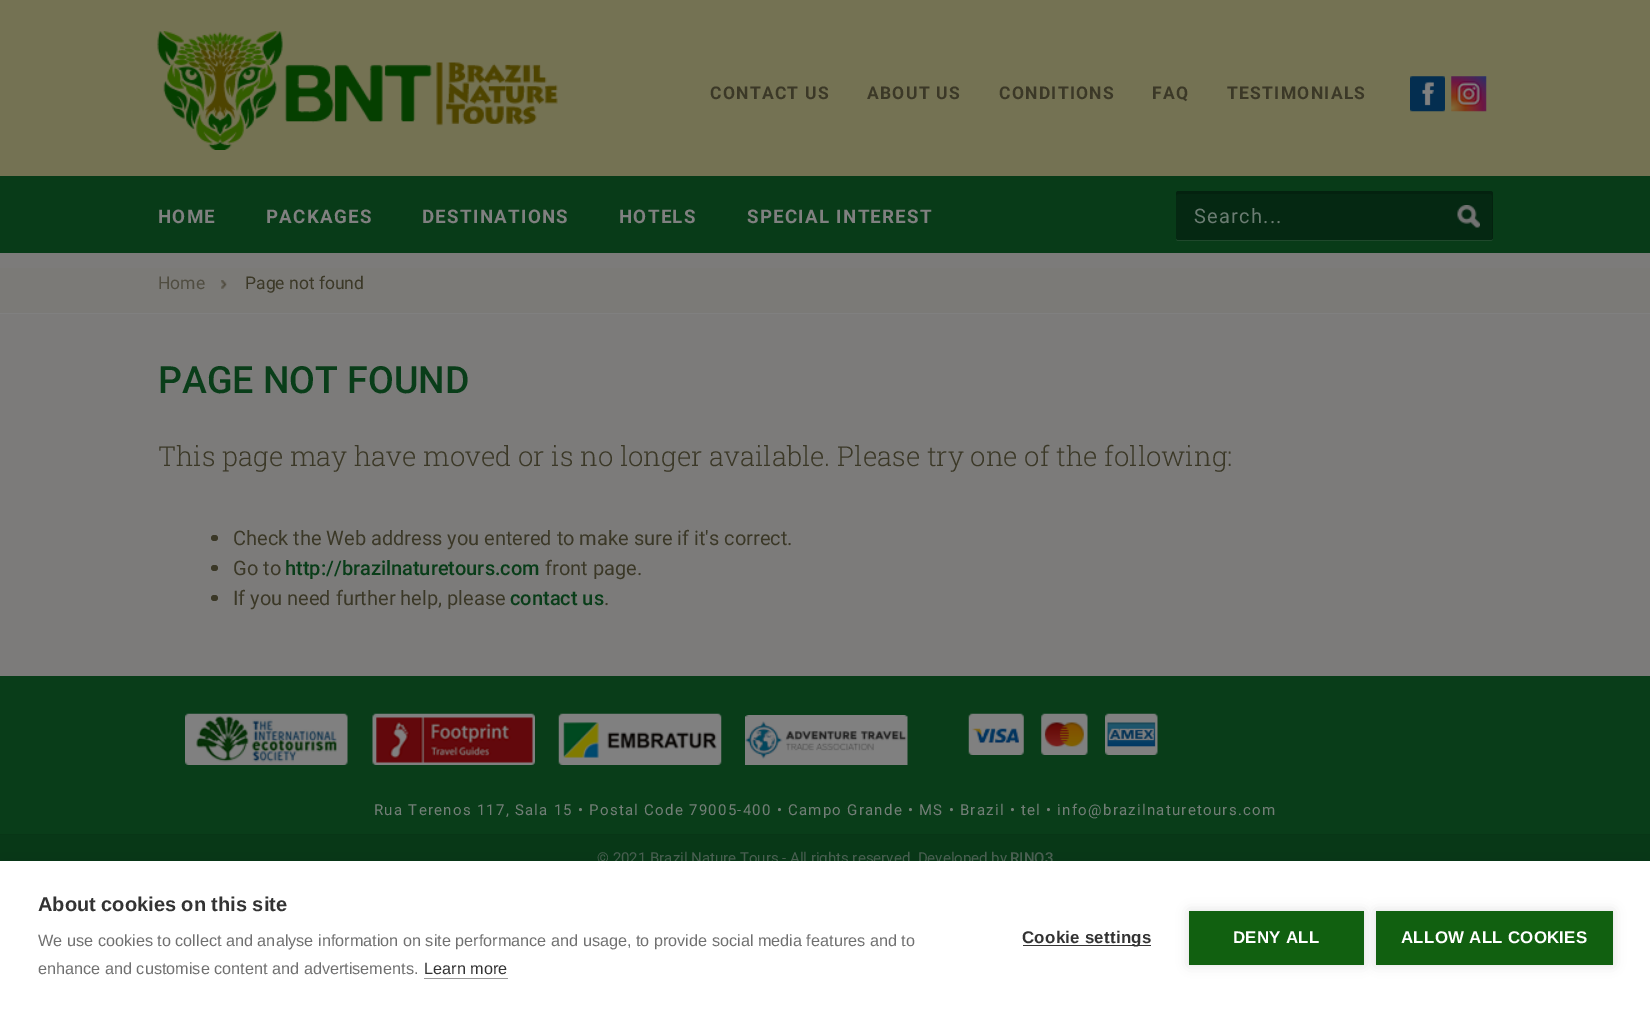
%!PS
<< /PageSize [1650 1013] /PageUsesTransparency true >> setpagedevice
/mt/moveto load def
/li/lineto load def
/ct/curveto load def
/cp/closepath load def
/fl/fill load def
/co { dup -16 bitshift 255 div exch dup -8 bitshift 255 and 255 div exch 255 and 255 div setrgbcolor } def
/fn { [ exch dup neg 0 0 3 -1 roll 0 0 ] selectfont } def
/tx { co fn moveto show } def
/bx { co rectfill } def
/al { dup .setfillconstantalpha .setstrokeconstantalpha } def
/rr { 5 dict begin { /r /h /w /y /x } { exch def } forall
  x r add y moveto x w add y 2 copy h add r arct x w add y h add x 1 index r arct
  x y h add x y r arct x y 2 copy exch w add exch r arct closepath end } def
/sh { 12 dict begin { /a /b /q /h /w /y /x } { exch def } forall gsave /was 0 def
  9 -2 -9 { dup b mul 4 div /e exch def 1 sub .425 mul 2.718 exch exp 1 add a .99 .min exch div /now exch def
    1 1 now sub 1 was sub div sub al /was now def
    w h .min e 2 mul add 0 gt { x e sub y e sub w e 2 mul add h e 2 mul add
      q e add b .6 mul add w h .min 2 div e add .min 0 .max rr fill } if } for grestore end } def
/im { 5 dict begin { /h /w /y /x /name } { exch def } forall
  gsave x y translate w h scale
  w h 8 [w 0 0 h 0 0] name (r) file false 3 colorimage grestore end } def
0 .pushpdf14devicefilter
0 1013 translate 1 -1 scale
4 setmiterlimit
0 0 1650 1013 16#7C7B7A bx
0 0 1650 176 16#747253 bx
0 176 1650 77 16#083B18 bx
(media/1.raw) 157 31 401 119 im
(media/2.raw) 1410 76 35 36 im
(media/3.raw) 1451 76 36 36 im
16#1F482C co
1176 194 mt 1176 238 li 1176 240 1177 241 1178 241 ct 1490 241 li 1492 241 1493 240 1493 238 ct 1493 196 li 1492 194 li 1492 238 li 1492 239 1491 240 1490 240 ct 1179 240 li 1177 240 1176 239 1176 238 ct cp fl
16#052812 co
1176 191 317 49 2.5 rr fl
(media/4.raw) 1457 205 23 23 im
0.15 al
16#000000 co
1179 194 mt 1490 194 li 1491 194 1492 195 1492 196 ct 1492 240 li 1493 239 1493 238 1493 238 ct 1493 194 li 1493 192 1492 191 1490 191 ct 1178 191 li 1177 191 1176 192 1176 194 ct 1176 196 li 1176 195 1177 194 1179 194 ct cp fl
1 al
0 268 1650 45 16#7B7A77 bx
0 313 1650 1 16#808080 bx
(media/5.raw) 221 280 6 9 im
16#3B3827 co
211 535 7 6 3 rr fl
211 565 7 6 3 rr fl
211 595 7 6 3 rr fl
0 676 1650 158 16#093D19 bx
(media/6.raw) 185 713 163 52 im
(media/7.raw) 372 713 163 52 im
(media/8.raw) 558 713 164 52 im
(media/9.raw) 745 715 163 50 im
(media/10.raw) 968 713 56 42 im
(media/11.raw) 1041 713 47 42 im
(media/12.raw) 1105 713 53 42 im
0 835 1650 26 16#083817 bx
0 834 1650 1 16#083616 bx
16#000000 co
0 861 1650 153 0 12.5 .1 sh
/Roboto-Bold 17.5 fn
16#3B3827 co
710 99 mt 1.25 0 (CONTACT US) ashow
867 99 mt 1.25 0 (ABOUT US) ashow
999 99 mt 1.25 0 (CONDITIONS) ashow
1152 99 mt 1.25 0 (FAQ) ashow
1227 99 mt 1.25 0 (TESTIMONIALS) ashow
/Roboto-Bold 18.75 fn
16#808080 co
158 223 mt 1.25 0 (HOME) ashow
266 223 mt 1.25 0 (PACKAGES) ashow
422 223 mt 1.25 0 (DESTINATIONS) ashow
619 223 mt 1.25 0 (HOTELS) ashow
747 223 mt 1.25 0 (SPECIAL INTEREST) ashow
/Roboto-Regular 20 fn
16#6B7C72 co
1194 223 mt 1.25 0 (Search...) ashow
(Home) 158 289 /Roboto-Regular 17.5 16#504D41 tx
(Page not found) 245 289 /Roboto-Regular 17.5 16#3B3827 tx
(PAGE NOT FOUND) 158 393 /Roboto-Medium 37.5 16#093D19 tx
(This page may have moved or is no longer available. Please try one of the following:) 158 466 /RobotoSlab-Light 27.5 16#3B3827 tx
(Check the Web address you entered to make sure if it's correct.) 233 545 /Roboto-Regular 20 16#3B3827 tx
(Go to) 233 575 /Roboto-Regular 20 16#3B3827 tx
(http://brazilnaturetours.com) 285 575 /Roboto-Medium 20 16#093D19 tx
(front page.) 545 575 /Roboto-Regular 20 16#3B3827 tx
(If you need further help, please) 233 605 /Roboto-Regular 20 16#3B3827 tx
(contact us) 510 605 /Roboto-Medium 20 16#093D19 tx
(.) 604 605 /Roboto-Regular 20 16#3B3827 tx
/Roboto-Regular 15 fn
16#737E77 co
374 815 mt 1.25 0 (Rua Terenos 117, Sala 15 • Postal Code 79005-400 • Campo Grande • MS • Brazil • tel • info@brazilnaturetours.com) ashow
(© 2021 Brazil Nature Tours - All rights reserved. Developed by) 597 863 /Roboto-Regular 15 16#495F51 tx
(RINO3) 1010 863 /Roboto-Medium 15 16#495F51 tx
0 861 1650 152 16#FFFFFF bx
(About cookies on this site) 38 911 /LiberationSans-Bold 20 16#333333 tx
(We use cookies to collect and analyse information on site performance and usage, to provide social media features and to) 38 946 /LiberationSans-Regular 16.25 16#707070 tx
(enhance and customise content and advertisements.) 38 974 /LiberationSans-Regular 16.25 16#707070 tx
(Learn more) 424 974 /LiberationSans-Regular 16.25 16#333333 tx
424 978 84 1 16#999999 bx
1023 945 128 1 16#333333 bx
/LiberationSans-Bold 16.9 fn
1022 943 mt .25 0 (Cookie settings) ashow
16#000000 co
1189 911 175 54 0 6 .12 sh
1189 911 175 54 16#116010 bx
16#FFFFFF co
1233 943 mt .25 0 (DENY ALL) ashow
16#000000 co
1376 911 237 54 0 6 .12 sh
1376 911 237 54 16#116010 bx
16#FFFFFF co
1401 943 mt .25 0 (ALLOW ALL COOKIES) ashow
.poppdf14devicefilter showpage
